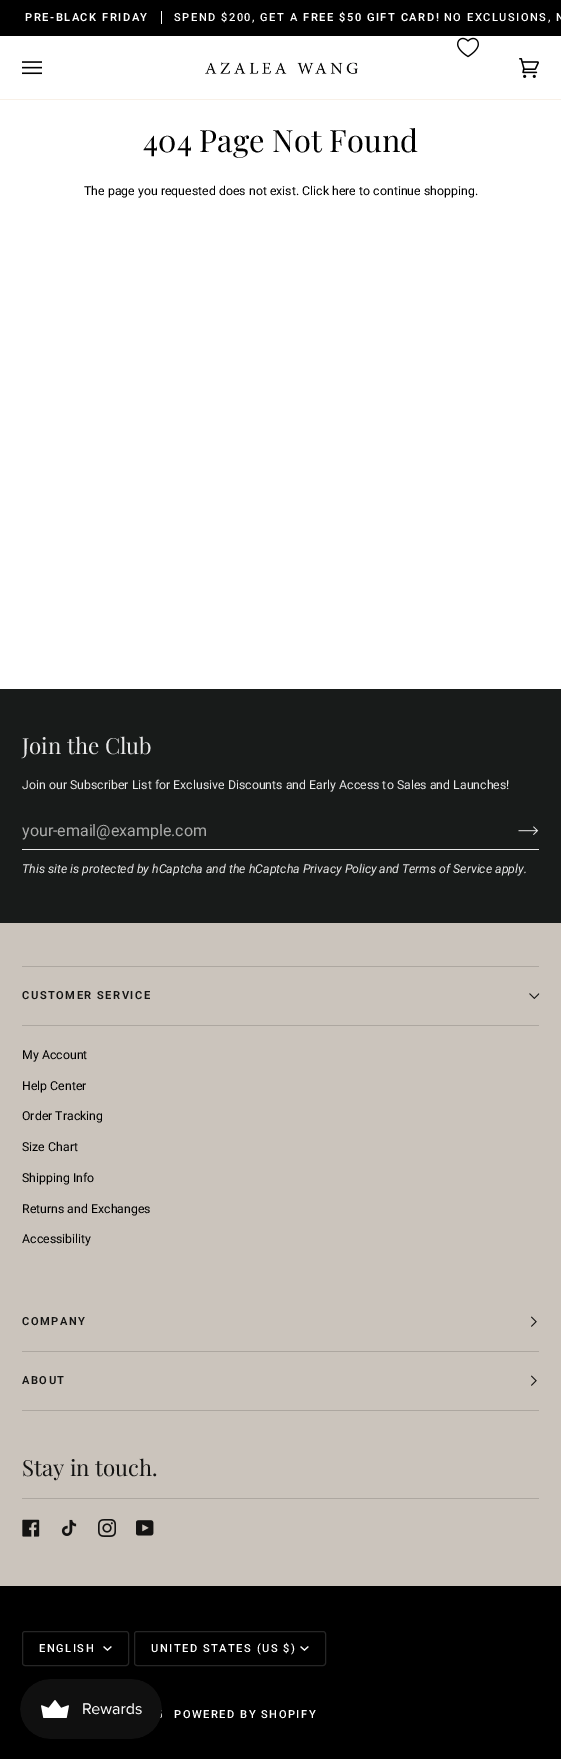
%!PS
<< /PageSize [561 1759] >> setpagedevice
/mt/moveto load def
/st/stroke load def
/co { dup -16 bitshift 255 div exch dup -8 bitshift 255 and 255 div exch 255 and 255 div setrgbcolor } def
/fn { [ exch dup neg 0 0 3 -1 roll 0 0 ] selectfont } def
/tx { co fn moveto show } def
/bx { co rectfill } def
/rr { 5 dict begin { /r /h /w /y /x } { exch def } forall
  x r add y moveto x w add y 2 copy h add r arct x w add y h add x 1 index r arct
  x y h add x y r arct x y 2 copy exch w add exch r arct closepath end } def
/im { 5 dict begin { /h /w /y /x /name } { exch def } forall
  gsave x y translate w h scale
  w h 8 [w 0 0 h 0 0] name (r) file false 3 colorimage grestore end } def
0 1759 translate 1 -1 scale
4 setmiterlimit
0 0 561 1759 16#FFFFFF bx
0 0 561 36 16#000000 bx
161 11 1 13 16#FFFFFF bx
0 99 561 1 16#F8F0E7 bx
(media/1.raw) 22 61 20 14 im
(media/2.raw) 205 62 153 13 im
(media/3.raw) 457 37 22 21 im
(media/4.raw) 519 58 20 20 im
0 923 561 663 16#CBC4BC bx
0 689 561 234 16#181B1A bx
22 849 517 1 16#E8E8E8 bx
(media/5.raw) 518 826 21 9 im
22 966 517 1 16#ADA7A0 bx
22 1025 517 1 16#ADA7A0 bx
(media/6.raw) 529 993 11 6 im
22 1351 517 1 16#ADA7A0 bx
(media/7.raw) 531 1316 6 11 im
22 1410 517 1 16#ADA7A0 bx
(media/7.raw) 531 1375 6 11 im
22 1498 517 1 16#ADA7A0 bx
(media/8.raw) 22 1519 18 18 im
(media/9.raw) 61 1519 16 17 im
(media/10.raw) 98 1519 18 18 im
(media/11.raw) 136 1520 18 16 im
0 1586 561 173 16#000000 bx
16#262626 co
22.5 1631.5 106 34 2.5 rr st
(media/12.raw) 103 1646 9 5 im
134.5 1631.5 191 34 2.5 rr st
(media/12.raw) 300 1646 9 5 im
(media/13.raw) 20 1679 142 60 im
/Roboto-SemiBold 11.1 fn
16#FFFFFF co
25 21 mt 1.5 0 (PRE-BLACK FRIDAY) ashow
/Roboto-Medium 11.1 fn
174 21 mt 1.5 0 (SPEND $200, GET A) ashow
/Roboto-SemiBold 11.1 fn
303 21 mt 1.5 0 (FREE $50 GIFT CARD!) ashow
/Roboto-Medium 11.1 fn
444 21 mt 1.5 0 (NO EXCLUSIONS, N) ashow
(404 Page Not Found) 143 152 /PlayfairDisplay-Regular 30.75 16#000000 tx
(The page you requested does not exist. Click here to continue shopping.) 84 195 /Roboto-Regular 12.35 16#000000 tx
(Join the Club) 22 754 /PlayfairDisplay-Regular 22.25 16#E8E8E8 tx
(Join our Subscriber List for Exclusive Discounts and Early Access to Sales and Launches!) 22 789 /Roboto-Regular 12.35 16#E8E8E8 tx
(your-email@example.com) 22 836 /Roboto-Regular 16 16#AAABAA tx
(This site is protected by hCaptcha and the hCaptcha Privacy Policy) 22 873 /Roboto-Italic 12.35 16#E8E8E8 tx
(and Terms of Service) 379 873 /Roboto-Italic 12.35 16#E8E8E8 tx
(apply.) 495 873 /Roboto-Italic 12.35 16#E8E8E8 tx
/Roboto-SemiBold 11.1 fn
16#141413 co
22 999 mt 1.5 0 (CUSTOMER SERVICE) ashow
(My Account) 22 1059 /Roboto-Regular 12.35 16#000000 tx
(Help Center) 22 1090 /Roboto-Regular 12.35 16#000000 tx
(Order Tracking) 22 1120 /Roboto-Regular 12.35 16#000000 tx
(Size Chart) 22 1151 /Roboto-Regular 12.35 16#000000 tx
(Shipping Info) 22 1182 /Roboto-Regular 12.35 16#000000 tx
(Returns and Exchanges) 22 1213 /Roboto-Regular 12.35 16#000000 tx
(Accessibility) 22 1243 /Roboto-Regular 12.35 16#000000 tx
/Roboto-SemiBold 11.1 fn
16#141413 co
22 1325 mt 1.5 0 (COMPANY) ashow
22 1384 mt 1.5 0 (ABOUT) ashow
(Stay in touch.) 22 1476 /PlayfairDisplay-Regular 22.25 16#141413 tx
/Roboto-Medium 11.1 fn
16#FFFFFF co
39 1652 mt 1.5 0 (ENGLISH) ashow
151 1652 mt 1.5 0 (UNITED STATES \(US $\)) ashow
174 1718 mt 1.5 0 (POWERED BY SHOPIFY) ashow
showpage
